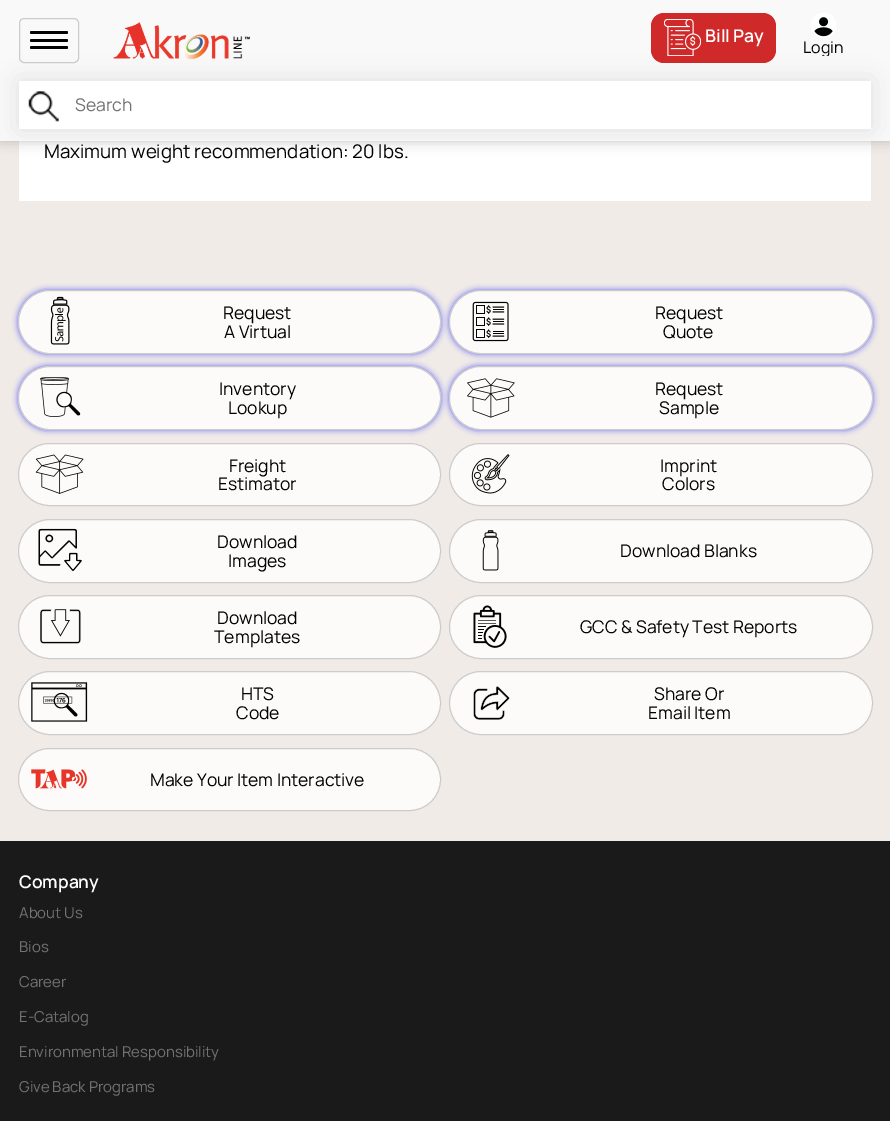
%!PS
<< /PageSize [890 1121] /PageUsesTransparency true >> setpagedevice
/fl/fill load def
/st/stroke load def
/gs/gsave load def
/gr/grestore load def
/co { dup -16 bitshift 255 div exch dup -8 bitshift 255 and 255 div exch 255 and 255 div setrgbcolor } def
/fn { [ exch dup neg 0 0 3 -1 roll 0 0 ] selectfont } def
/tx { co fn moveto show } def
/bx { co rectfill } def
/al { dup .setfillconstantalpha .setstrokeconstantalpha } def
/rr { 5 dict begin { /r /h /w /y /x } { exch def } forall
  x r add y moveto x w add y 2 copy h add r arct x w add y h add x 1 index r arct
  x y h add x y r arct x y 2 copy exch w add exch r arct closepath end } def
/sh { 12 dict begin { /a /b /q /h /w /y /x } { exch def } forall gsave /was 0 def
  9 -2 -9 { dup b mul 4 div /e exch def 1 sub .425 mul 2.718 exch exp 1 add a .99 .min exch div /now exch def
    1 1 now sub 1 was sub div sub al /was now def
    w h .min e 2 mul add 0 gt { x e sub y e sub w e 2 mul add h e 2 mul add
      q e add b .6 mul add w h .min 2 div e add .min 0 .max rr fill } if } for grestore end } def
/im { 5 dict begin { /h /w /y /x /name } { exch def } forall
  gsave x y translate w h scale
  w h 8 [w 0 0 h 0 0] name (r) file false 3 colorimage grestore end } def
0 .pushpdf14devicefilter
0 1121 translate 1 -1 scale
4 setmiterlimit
0 0 890 1121 16#F0EBE7 bx
19 141 852 60 16#FFFFFF bx
16#000000 co
0 0 890 141 0 6 .2 sh
0 0 890 141 16#F9F9F9 bx
16#CCCCCC co
19.5 18.5 59 44 4.5 rr st
16#000000 co
30 31 38 3 1.5 rr fl
30 39 38 3 1.5 rr fl
30 46 38 3 1.5 rr fl
(media/1.raw) 113 22 137 37 im
19 81 852 48 0 12.5 .1 sh
16#CF2929 co
651 13 125 50 13 rr fl
(media/2.raw) 664 19 37 37 im
(media/3.raw) 811 13 25 25 im
19 81 852 48 16#FFFFFF bx
(media/4.raw) 28 91 31 31 im
16#2B2BFF co
18 290 423 64 32 3 .71 sh
16#FCFBF9 co
18.5 290.5 422 63 31.5 rr gs fl gr
16#CCCCCC co
st
(media/5.raw) 50 296 20 49 im
16#2B2BFF co
449 290 424 64 32 3 .71 sh
16#FCFBF9 co
449.5 290.5 423 63 31.5 rr gs fl gr
16#CCCCCC co
st
(media/6.raw) 472 301 37 41 im
16#2B2BFF co
18 366 423 64 32 3 .71 sh
16#FCFBF9 co
18.5 366.5 422 63 31.5 rr gs fl gr
16#CCCCCC co
st
(media/7.raw) 40 377 41 40 im
16#2B2BFF co
449 366 424 64 32 3 .71 sh
16#FCFBF9 co
449.5 366.5 423 63 31.5 rr gs fl gr
16#CCCCCC co
st
(media/8.raw) 467 378 48 40 im
16#FCFBF9 co
18.5 443.5 422 62 31 rr gs fl gr
16#CCCCCC co
st
(media/9.raw) 35 454 49 40 im
16#FCFBF9 co
449.5 443.5 423 62 31 rr gs fl gr
16#CCCCCC co
st
(media/10.raw) 471 454 39 40 im
16#FCFBF9 co
18.5 519.5 422 63 31.5 rr gs fl gr
16#CCCCCC co
st
(media/11.raw) 38 528 44 43 im
16#FCFBF9 co
449.5 519.5 423 63 31.5 rr gs fl gr
16#CCCCCC co
st
(media/12.raw) 482 530 17 41 im
16#FCFBF9 co
18.5 595.5 422 63 31.5 rr gs fl gr
16#CCCCCC co
st
(media/13.raw) 40 609 41 35 im
16#FCFBF9 co
449.5 595.5 423 63 31.5 rr gs fl gr
16#CCCCCC co
st
(media/14.raw) 473 605 34 43 im
16#FCFBF9 co
18.5 671.5 422 63 31.5 rr gs fl gr
16#CCCCCC co
st
(media/15.raw) 31 682 57 40 im
16#FCFBF9 co
449.5 671.5 423 63 31.5 rr gs fl gr
16#CCCCCC co
st
(media/16.raw) 473 686 37 34 im
16#FCFBF9 co
18.5 748.5 422 62 31 rr gs fl gr
16#CCCCCC co
st
(media/17.raw) 31 769 56 20 im
0 841 890 280 16#1A1A1A bx
(Bill Pay) 705 42 /Manrope-SemiBold 17.5 16#FFFFFF tx
gs
776 13 95 43 rectclip
(Login) 803 53 /Manrope-Regular 16 16#000000 tx
gr
(Search) 75 111 /Manrope-Regular 17.5 16#727272 tx
(Maximum weight recommendation: 20 lbs.) 44 158 /Manrope-Regular 18.75 16#000000 tx
(Request) 223 319 /Manrope-Regular 17.5 16#000000 tx
(A Virtual) 224 338 /Manrope-Regular 17.5 16#000000 tx
(Request) 655 319 /Manrope-Regular 17.5 16#000000 tx
(Quote) 663 338 /Manrope-Regular 17.5 16#000000 tx
(Inventory) 219 395 /Manrope-Regular 17.5 16#000000 tx
(Lookup) 228 414 /Manrope-Regular 17.5 16#000000 tx
(Request) 655 395 /Manrope-Regular 17.5 16#000000 tx
(Sample) 659 414 /Manrope-Regular 17.5 16#000000 tx
(Freight) 229 472 /Manrope-Regular 17.5 16#000000 tx
(Estimator) 218 490 /Manrope-Regular 17.5 16#000000 tx
(Imprint) 660 472 /Manrope-Regular 17.5 16#000000 tx
(Colors) 662 490 /Manrope-Regular 17.5 16#000000 tx
(Download) 217 548 /Manrope-Regular 17.5 16#000000 tx
(Images) 228 567 /Manrope-Regular 17.5 16#000000 tx
(Download Blanks) 620 557 /Manrope-Regular 17.5 16#000000 tx
(Download) 217 624 /Manrope-Regular 17.5 16#000000 tx
(Templates) 214 643 /Manrope-Regular 17.5 16#000000 tx
(GCC & Safety Test Reports) 580 633 /Manrope-Regular 17.5 16#000000 tx
(HTS) 241 700 /Manrope-Regular 17.5 16#000000 tx
(Code) 236 719 /Manrope-Regular 17.5 16#000000 tx
(Share Or) 654 700 /Manrope-Regular 17.5 16#000000 tx
(Email Item) 648 719 /Manrope-Regular 17.5 16#000000 tx
(Make Your Item Interactive) 150 786 /Manrope-Regular 17.5 16#000000 tx
(Company) 19 888 /Manrope-SemiBold 17.5 16#FFFFFF tx
(About Us) 19 918 /Manrope-Regular 15 16#727272 tx
(Bios) 19 952 /Manrope-Regular 15 16#727272 tx
(Career) 19 987 /Manrope-Regular 15 16#727272 tx
(E-Catalog) 19 1022 /Manrope-Regular 15 16#727272 tx
(Environmental Responsibility) 19 1057 /Manrope-Regular 15 16#727272 tx
(Give Back Programs) 19 1092 /Manrope-Regular 15 16#727272 tx
.poppdf14devicefilter showpage
